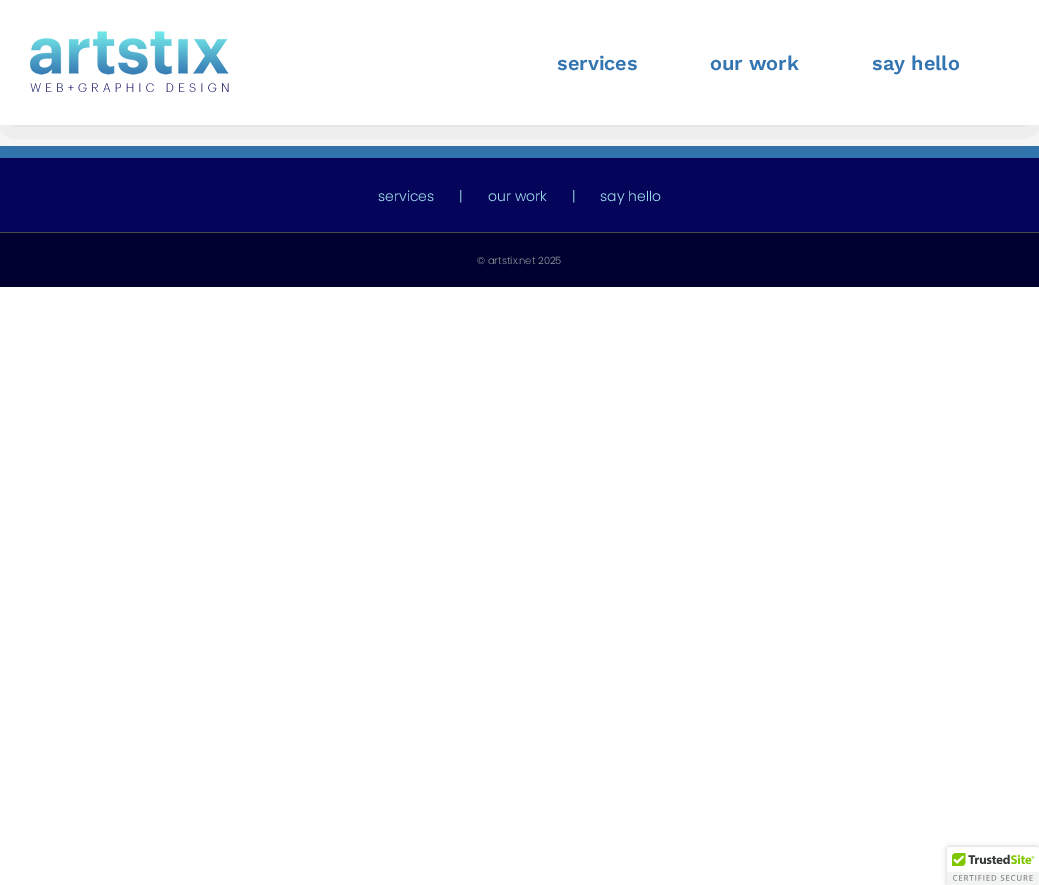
%!PS
<< /PageSize [1039 885] /PageUsesTransparency true >> setpagedevice
/mt/moveto load def
/li/lineto load def
/ct/curveto load def
/cp/closepath load def
/fl/fill load def
/gs/gsave load def
/gr/grestore load def
/co { dup -16 bitshift 255 div exch dup -8 bitshift 255 and 255 div exch 255 and 255 div setrgbcolor } def
/fn { [ exch dup neg 0 0 3 -1 roll 0 0 ] selectfont } def
/tx { co fn moveto show } def
/bx { co rectfill } def
/al { dup .setfillconstantalpha .setstrokeconstantalpha } def
/rr { 5 dict begin { /r /h /w /y /x } { exch def } forall
  x r add y moveto x w add y 2 copy h add r arct x w add y h add x 1 index r arct
  x y h add x y r arct x y 2 copy exch w add exch r arct closepath end } def
/sh { 12 dict begin { /a /b /q /h /w /y /x } { exch def } forall gsave /was 0 def
  9 -2 -9 { dup b mul 4 div /e exch def 1 sub .425 mul 2.718 exch exp 1 add a .99 .min exch div /now exch def
    1 1 now sub 1 was sub div sub al /was now def
    w h .min e 2 mul add 0 gt { x e sub y e sub w e 2 mul add h e 2 mul add
      q e add b .6 mul add w h .min 2 div e add .min 0 .max rr fill } if } for grestore end } def
/im { 5 dict begin { /h /w /y /x /name } { exch def } forall
  gsave x y translate w h scale
  w h 8 [w 0 0 h 0 0] name (r) file false 3 colorimage grestore end } def
0 .pushpdf14devicefilter
0 885 translate 1 -1 scale
4 setmiterlimit
0 0 1039 885 16#FFFFFF bx
0 158 1039 74 16#03045A bx
0 146 1039 12 16#3375B1 bx
gs
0 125 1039 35 rectclip
16#000000 co
2 12 1035 121 0 25 .14 sh
gr
(media/1.raw) 30 31 199 61 im
0 233 1039 54 16#000030 bx
0 232 1039 1 16#4B4C4D bx
16#000000 co
947 847 92 38 2 2.5 .2 sh
16#FFFFFF co
949 847 mt 1039 847 li 1039 885 li 947 885 li 947 849 li 947 848 948 847 949 847 ct cp fl
(media/2.raw) 947 847 92 38 im
(services) 557 70 /WorkSans-SemiBold 20 16#3375B1 tx
(our work) 710 70 /WorkSans-SemiBold 20 16#3375B1 tx
(say hello) 872 70 /WorkSans-SemiBold 20 16#3375B1 tx
(services) 378 201 /Poppins-Light 14 16#A2DEED tx
(|) 459 201 /Poppins-Light 14 16#A2DEED tx
(our work) 488 201 /Poppins-Light 14 16#A2DEED tx
(|) 572 201 /Poppins-Light 14 16#A2DEED tx
(say hello) 600 201 /Poppins-Light 14 16#A2DEED tx
(© artstix.net 2025) 477 264 /Poppins-Light 10 16#8D9698 tx
.poppdf14devicefilter showpage
